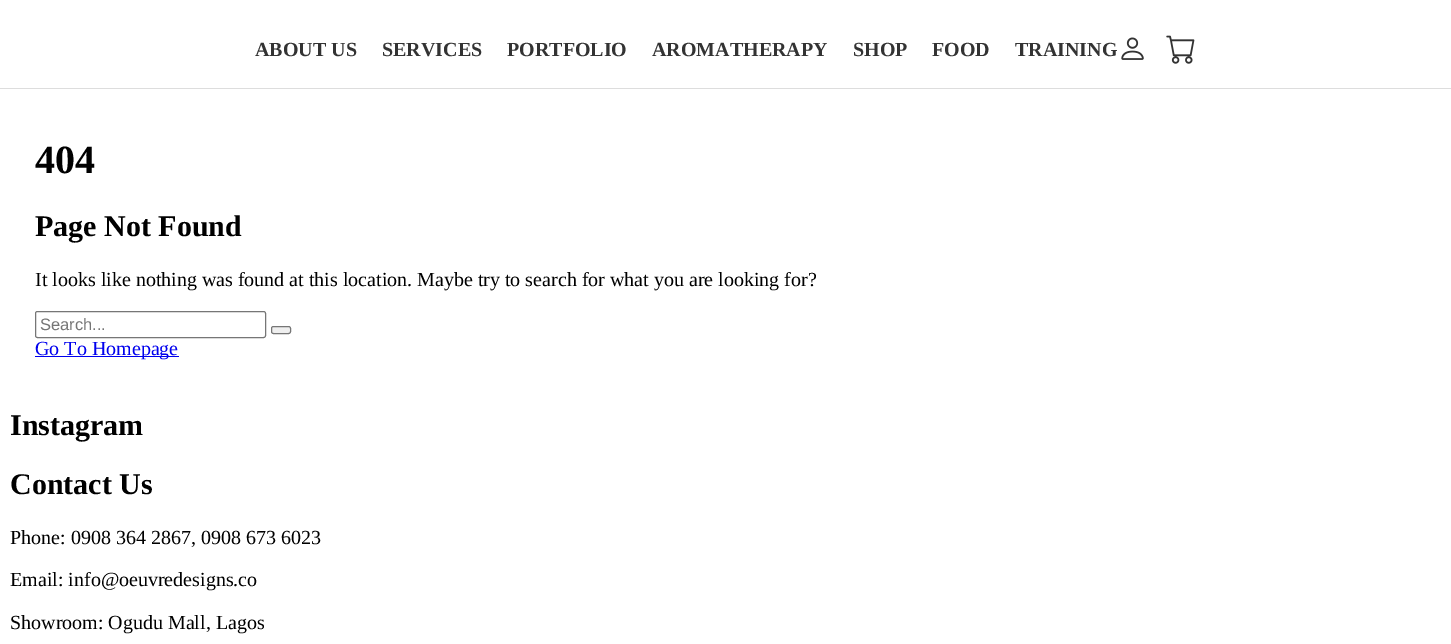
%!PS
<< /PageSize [1451 644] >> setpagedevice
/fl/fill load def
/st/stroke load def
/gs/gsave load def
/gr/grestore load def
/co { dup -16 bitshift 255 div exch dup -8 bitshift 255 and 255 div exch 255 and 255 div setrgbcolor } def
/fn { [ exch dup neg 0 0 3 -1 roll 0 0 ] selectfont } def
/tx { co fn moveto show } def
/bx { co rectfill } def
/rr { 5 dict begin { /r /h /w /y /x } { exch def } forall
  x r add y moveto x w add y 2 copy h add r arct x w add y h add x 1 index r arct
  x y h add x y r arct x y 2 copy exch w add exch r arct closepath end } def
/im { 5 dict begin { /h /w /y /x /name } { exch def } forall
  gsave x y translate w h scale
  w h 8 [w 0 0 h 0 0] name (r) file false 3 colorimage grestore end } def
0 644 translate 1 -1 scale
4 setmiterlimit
0 0 1451 644 16#FFFFFF bx
0 88 1451 1 16#DDDDDD bx
(media/1.raw) 1121 37 23 23 im
(media/2.raw) 1166 35 29 29 im
16#767676 co
35.5 311.5 230 26 2 rr st
16#EFEFEF co
271.5 326.5 19 7 2 rr gs fl gr
16#767676 co
st
35 356 144 1 16#0000EE bx
(ABOUT US) 255 56 /LiberationSerif-Bold 20 16#333333 tx
(SERVICES) 382 56 /LiberationSerif-Bold 20 16#333333 tx
(PORTFOLIO) 507 56 /LiberationSerif-Bold 20 16#333333 tx
(AROMATHERAPY) 652 56 /LiberationSerif-Bold 20 16#333333 tx
(SHOP) 853 56 /LiberationSerif-Bold 20 16#333333 tx
(FOOD) 932 56 /LiberationSerif-Bold 20 16#333333 tx
(TRAINING) 1015 56 /LiberationSerif-Bold 20 16#333333 tx
(404) 35 173 /LiberationSerif-Bold 40 16#000000 tx
(Page Not Found) 35 236 /LiberationSerif-Bold 30 16#000000 tx
(It looks like nothing was found at this location. Maybe try to search for what you are looking for?) 35 286 /LiberationSerif-Regular 20 16#000000 tx
(Search...) 40 330 /LiberationSans-Regular 16.5 16#757575 tx
(Go To Homepage) 35 355 /LiberationSerif-Regular 20 16#0000EE tx
(Instagram) 10 435 /LiberationSerif-Bold 30 16#000000 tx
(Contact Us) 10 494 /LiberationSerif-Bold 30 16#000000 tx
(Phone: 0908 364 2867, 0908 673 6023) 10 544 /LiberationSerif-Regular 20 16#000000 tx
(Email: info@oeuvredesigns.co) 10 586 /LiberationSerif-Regular 20 16#000000 tx
(Showroom: Ogudu Mall, Lagos) 10 629 /LiberationSerif-Regular 20 16#000000 tx
showpage
